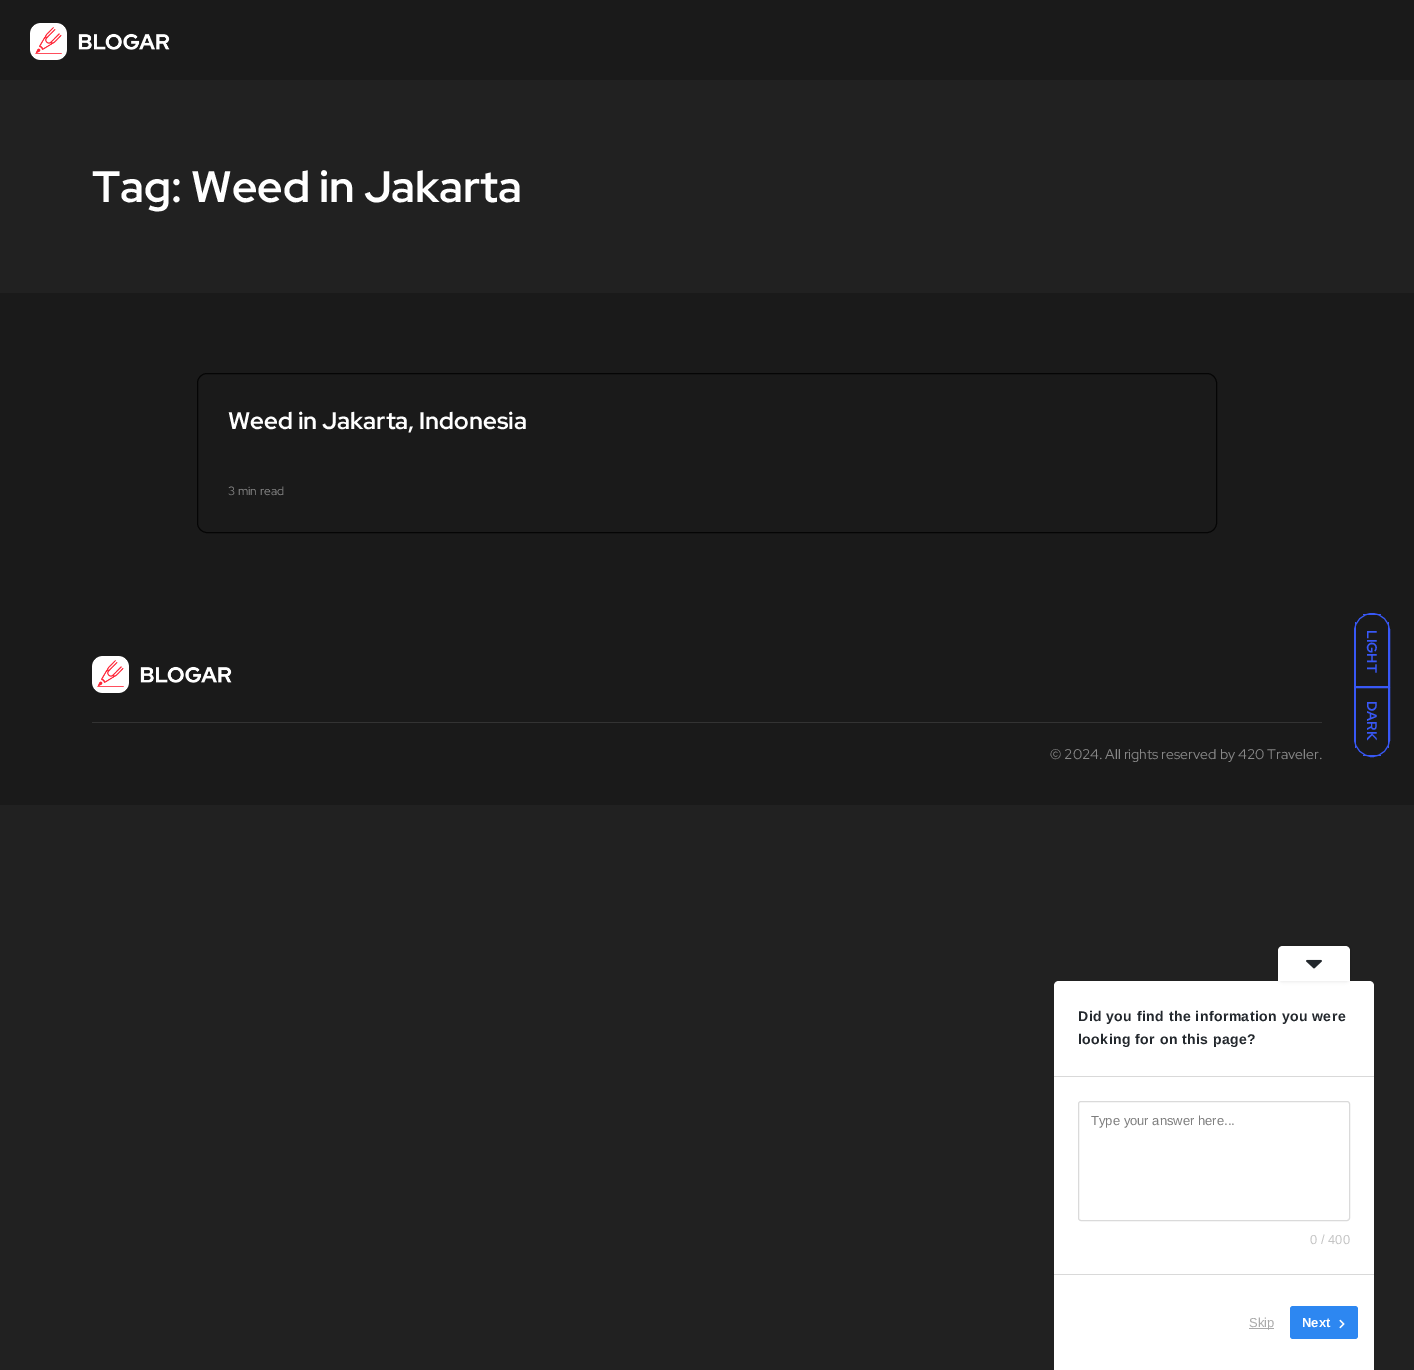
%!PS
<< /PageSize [1414 1370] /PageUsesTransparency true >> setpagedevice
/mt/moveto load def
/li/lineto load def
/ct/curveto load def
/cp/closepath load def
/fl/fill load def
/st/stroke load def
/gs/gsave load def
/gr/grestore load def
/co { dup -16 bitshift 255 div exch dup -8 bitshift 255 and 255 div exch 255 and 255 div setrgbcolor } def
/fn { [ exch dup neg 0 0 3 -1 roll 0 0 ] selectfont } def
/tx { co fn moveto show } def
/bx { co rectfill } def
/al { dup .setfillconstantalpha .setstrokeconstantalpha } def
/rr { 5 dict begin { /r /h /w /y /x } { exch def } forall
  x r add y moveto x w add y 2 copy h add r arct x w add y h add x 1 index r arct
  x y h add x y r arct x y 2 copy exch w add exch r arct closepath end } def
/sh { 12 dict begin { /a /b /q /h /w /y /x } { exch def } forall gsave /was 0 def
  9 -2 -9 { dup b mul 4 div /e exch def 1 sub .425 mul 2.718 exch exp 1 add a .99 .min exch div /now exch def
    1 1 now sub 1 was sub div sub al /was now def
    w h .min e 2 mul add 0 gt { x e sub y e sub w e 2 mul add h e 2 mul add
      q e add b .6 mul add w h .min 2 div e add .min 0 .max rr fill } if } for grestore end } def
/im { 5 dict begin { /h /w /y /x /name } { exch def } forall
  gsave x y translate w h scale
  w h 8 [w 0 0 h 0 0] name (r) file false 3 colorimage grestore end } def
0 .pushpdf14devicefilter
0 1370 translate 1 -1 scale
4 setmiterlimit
0 0 1414 1370 16#212121 bx
0 0 1414 80 16#1A1A1A bx
(media/1.raw) 30 23 140 37 im
0 293 1414 512 16#1A1A1A bx
16#050505 co
197.5 373.5 1019 159 9.5 rr st
16#3858F6 co
1389.5 631 mt 1389.5 686.5 li 1354.5 686.5 li 1354.5 631 li 1354.5 621.5 1362.5 613.5 1372 613.5 ct 1382 613.5 1389.5 621.5 1389.5 631 ct cp st
1388 622 1 65 16#3858F6 bx
1355 622 1 65 16#3858F6 bx
1363 614 18 1 16#3858F6 bx
1389.5 687.5 mt 1389.5 739 li 1389.5 748.5 1382 756.5 1372 756.5 ct 1362.5 756.5 1354.5 748.5 1354.5 739 ct 1354.5 687.5 li cp st
1388 687 1 61 16#3858F6 bx
1363 755 18 1 16#3858F6 bx
1355 687 1 61 16#3858F6 bx
(media/1.raw) 92 656 140 37 im
92 722 1230 1 16#333333 bx
16#FFFFFF co
1059 981 mt 1369 981 li 1372 981 1374 983 1374 986 ct 1374 1370 li 1054 1370 li 1054 986 li 1054 983 1056 981 1059 981 ct cp fl
16#000000 co
1276 943 76 39 7 1.5 .07 sh
16#FFFFFF co
1283 946 mt 1345 946 li 1348 946 1350 948 1350 951 ct 1350 981 li 1278 981 li 1278 951 li 1278 948 1280 946 1283 946 ct cp fl
(media/2.raw) 1306 959 16 10 im
1054 1076 320 1 16#D9D9D9 bx
1054 1274 320 1 16#D9D9D9 bx
16#DADADA co
1078.5 1101.5 271 119 2.5 rr st
1249 1328 25 1 16#AAAAAA bx
16#2D87F1 co
1290 1306 68 33 3 rr fl
(media/3.raw) 1339 1319 6 10 im
(Tag: Weed in Jakarta) 92 202 /RedHatDisplay-Bold 44 16#FFFFFF tx
(Weed in Jakarta, Indonesia) 228 429 /RedHatDisplay-Bold 24 16#FFFFFF tx
(3 min read) 228 495 /RedHatDisplay-Regular 12 16#878787 tx
/RedHatDisplay-Bold 14 fn
16#3858F6 co
gs 1367 630 translate 90 rotate 0 0 mt (LIGHT) show gr
gs 1367 701 translate 90 rotate 0 0 mt (DARK) show gr
(© 2024. All rights reserved by 420 Traveler.) 1050 759 /RedHatDisplay-Regular 14 16#878787 tx
/LiberationSans-Bold 14 fn
16#23282D co
1078 1021 mt .45 0 (Did you find the information you were) ashow
1078 1044 mt .45 0 (looking for on this page?) ashow
(Type your answer here...) 1091 1125 /LiberationSans-Regular 13 16#7E7E7E tx
(0 / 400) 1310 1244 /LiberationSans-Regular 13 16#C4C4C4 tx
(Skip) 1249 1327 /LiberationSans-Regular 13 16#AAAAAA tx
(Next) 1302 1327 /LiberationSans-Bold 13 16#FFFFFF tx
.poppdf14devicefilter showpage
